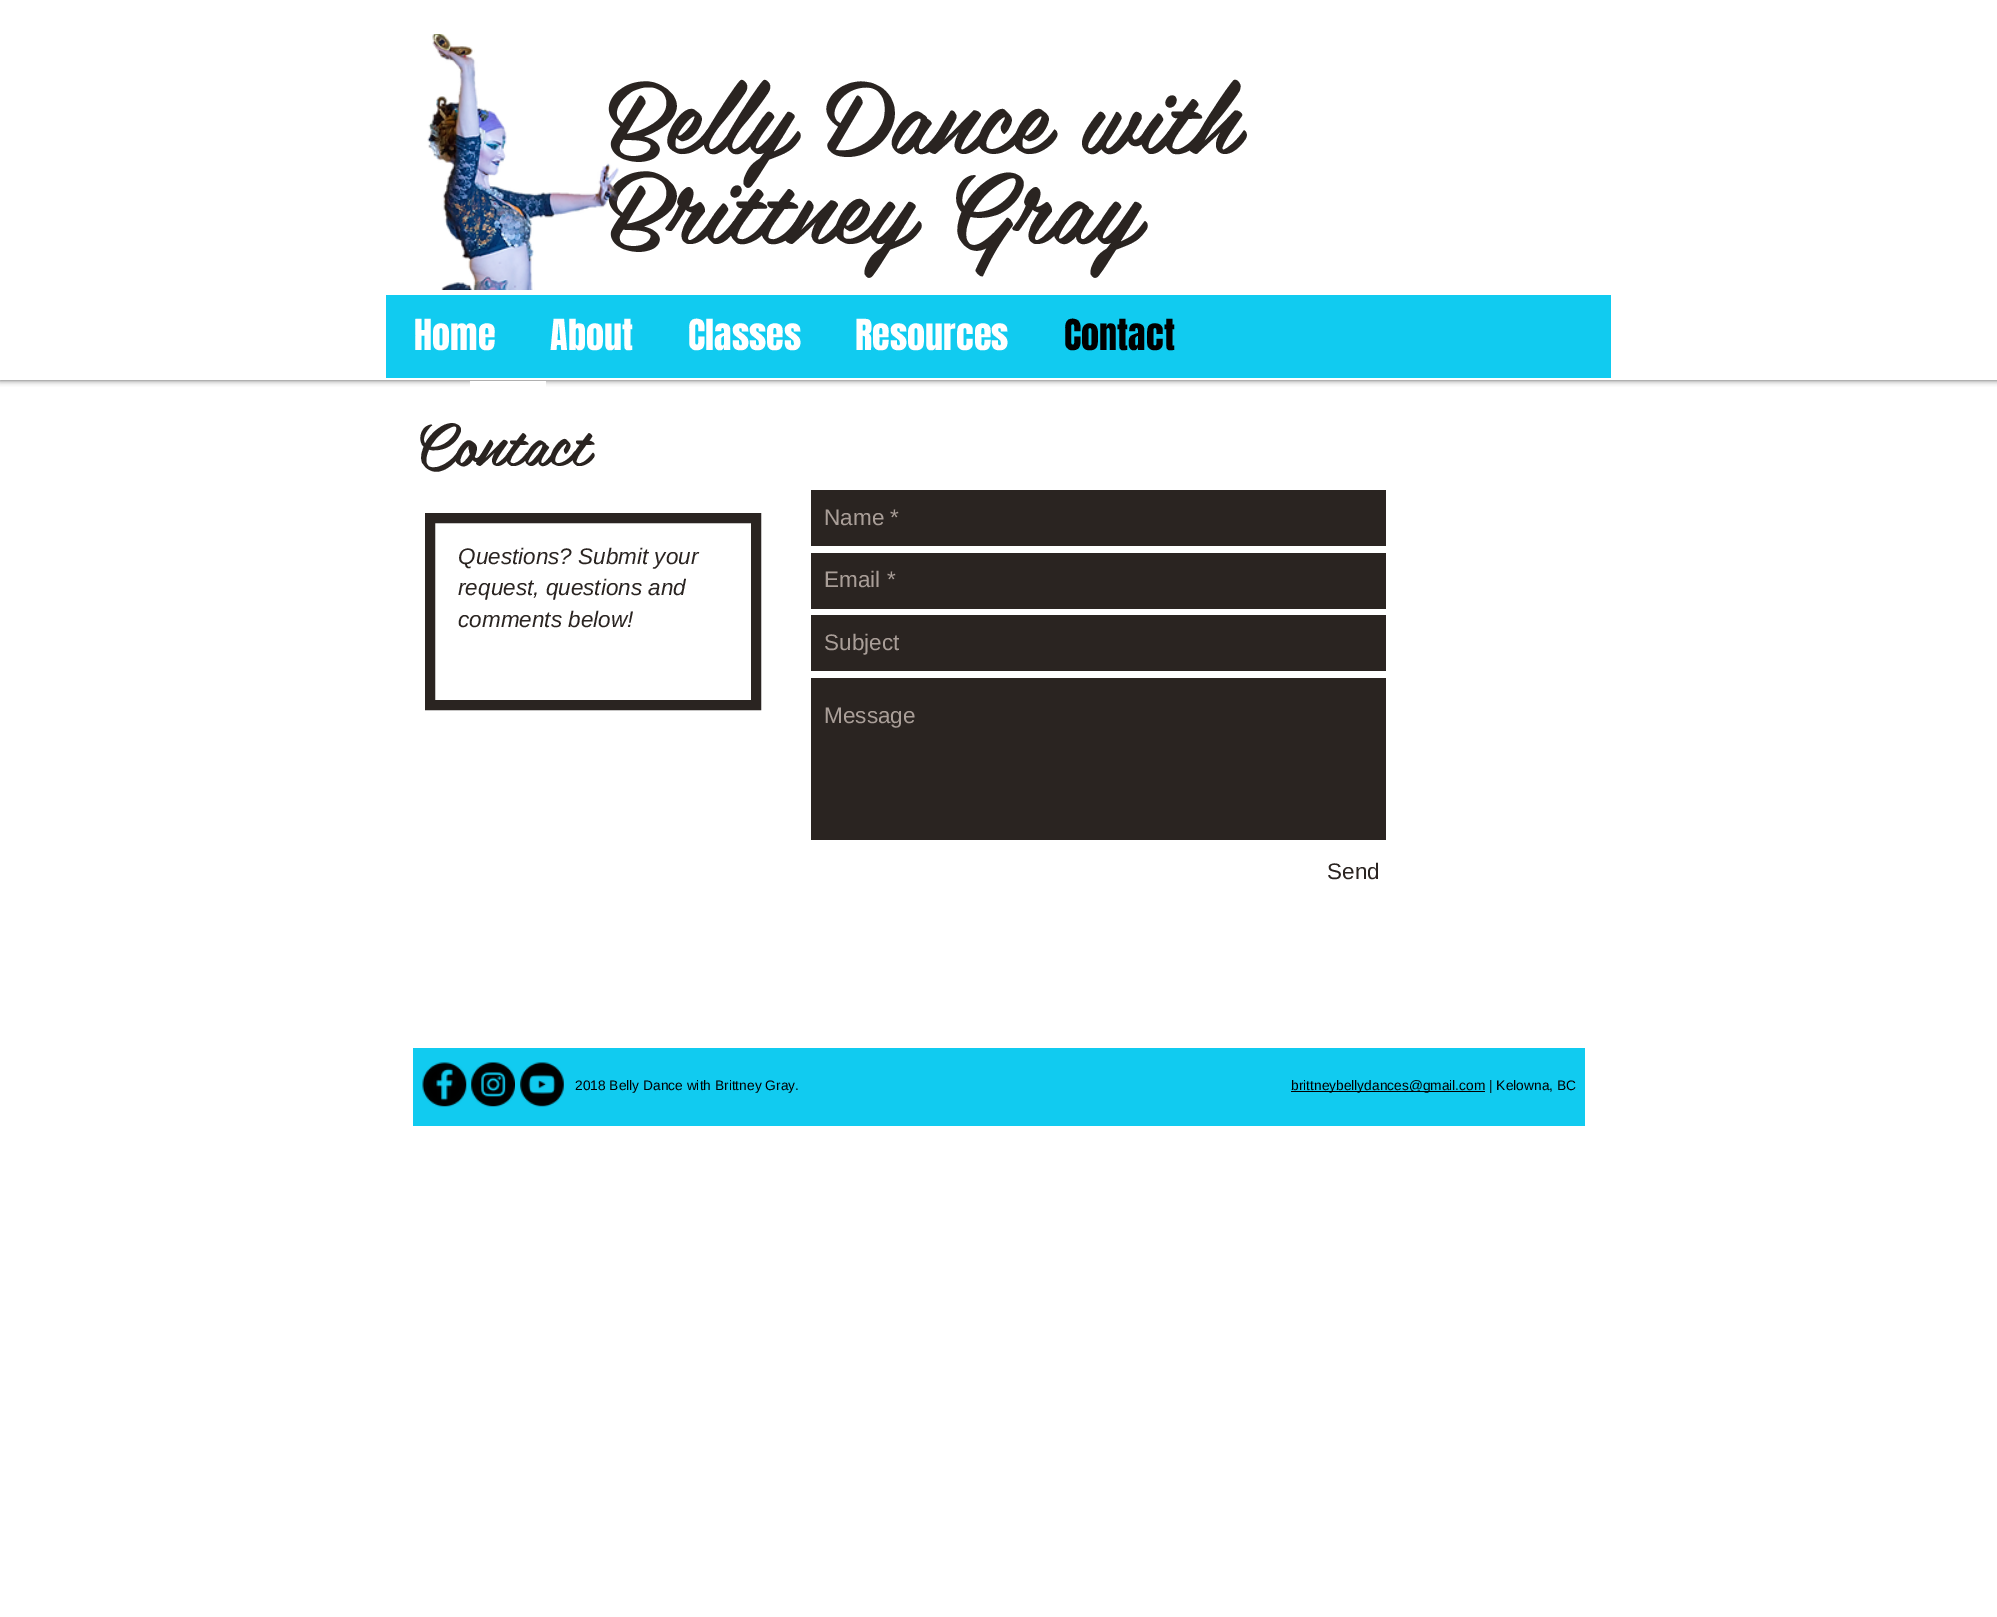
%!PS
<< /PageSize [1997 1617] /PageUsesTransparency true >> setpagedevice
/lw/setlinewidth load def
/co { dup -16 bitshift 255 div exch dup -8 bitshift 255 and 255 div exch 255 and 255 div setrgbcolor } def
/fn { [ exch dup neg 0 0 3 -1 roll 0 0 ] selectfont } def
/tx { co fn moveto show } def
/bx { co rectfill } def
/al { dup .setfillconstantalpha .setstrokeconstantalpha } def
/rr { 5 dict begin { /r /h /w /y /x } { exch def } forall
  x r add y moveto x w add y 2 copy h add r arct x w add y h add x 1 index r arct
  x y h add x y r arct x y 2 copy exch w add exch r arct closepath end } def
/sh { 12 dict begin { /a /b /q /h /w /y /x } { exch def } forall gsave /was 0 def
  9 -2 -9 { dup b mul 4 div /e exch def 1 sub .425 mul 2.718 exch exp 1 add a .99 .min exch div /now exch def
    1 1 now sub 1 was sub div sub al /was now def
    w h .min e 2 mul add 0 gt { x e sub y e sub w e 2 mul add h e 2 mul add
      q e add b .6 mul add w h .min 2 div e add .min 0 .max rr fill } if } for grestore end } def
/im { 5 dict begin { /h /w /y /x /name } { exch def } forall
  gsave x y translate w h scale
  w h 8 [w 0 0 h 0 0] name (r) file false 3 colorimage grestore end } def
0 .pushpdf14devicefilter
0 1617 translate 1 -1 scale
4 setmiterlimit
0 0 1997 1617 16#FFFFFF bx
16#000000 co
0 0 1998 380 0 3 .7 sh
0 0 1997 380 16#FFFFFF bx
386 295 1225 83 16#11CBF0 bx
470 381 76 6 16#FFFFFF bx
16#2A2421 co
10 lw
430 518 326 187 rectstroke
811 490 575 56 16#2A2421 bx
811 553 575 56 16#2A2421 bx
811 615 575 56 16#2A2421 bx
811 678 575 162 16#2A2421 bx
413 1048 1172 78 16#11CBF0 bx
(media/2.raw) 422 1062 45 45 im
(media/3.raw) 471 1062 44 45 im
(media/4.raw) 520 1062 44 45 im
1291 1091 194 1 16#000000 bx
(Belly Dance with) 609 154 /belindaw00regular-Regular 100 16#2A2421 tx
(Brittney Gray) 609 244 /belindaw00regular-Regular 100 16#2A2421 tx
(media/1.raw) 427 34 192 256 im
(Home) 414 350 /Anton-Regular 36.25 16#FFFFFF tx
(About) 550 350 /Anton-Regular 36.25 16#FFFFFF tx
(Classes) 688 350 /Anton-Regular 36.25 16#FFFFFF tx
(Resources) 855 350 /Anton-Regular 36.25 16#FFFFFF tx
(Contact) 1064 350 /Anton-Regular 36.25 16#000000 tx
(Contact) 413 466 /belindaw00regular-Regular 60 16#2A2421 tx
(Questions? Submit your) 458 564 /LiberationSans-Italic 22.5 16#2A2421 tx
(request, questions and) 458 595 /LiberationSans-Italic 22.5 16#2A2421 tx
(comments below!) 458 627 /LiberationSans-Italic 22.5 16#2A2421 tx
(Name *) 824 525 /LiberationSans-Regular 22.5 16#A99E98 tx
(Email *) 824 587 /LiberationSans-Regular 22.5 16#A99E98 tx
(Subject) 824 650 /LiberationSans-Regular 22.5 16#A99E98 tx
(Message) 824 723 /LiberationSans-Regular 22.5 16#A99E98 tx
(Send) 1327 879 /LiberationSans-Regular 22.5 16#2A2421 tx
(2018 Belly Dance with Brittney Gray.) 575 1090 /LiberationSans-Regular 13.75 16#000000 tx
(brittneybellydances@gmail.com | Kelowna, BC) 1291 1090 /LiberationSans-Regular 13.75 16#000000 tx
.poppdf14devicefilter showpage
